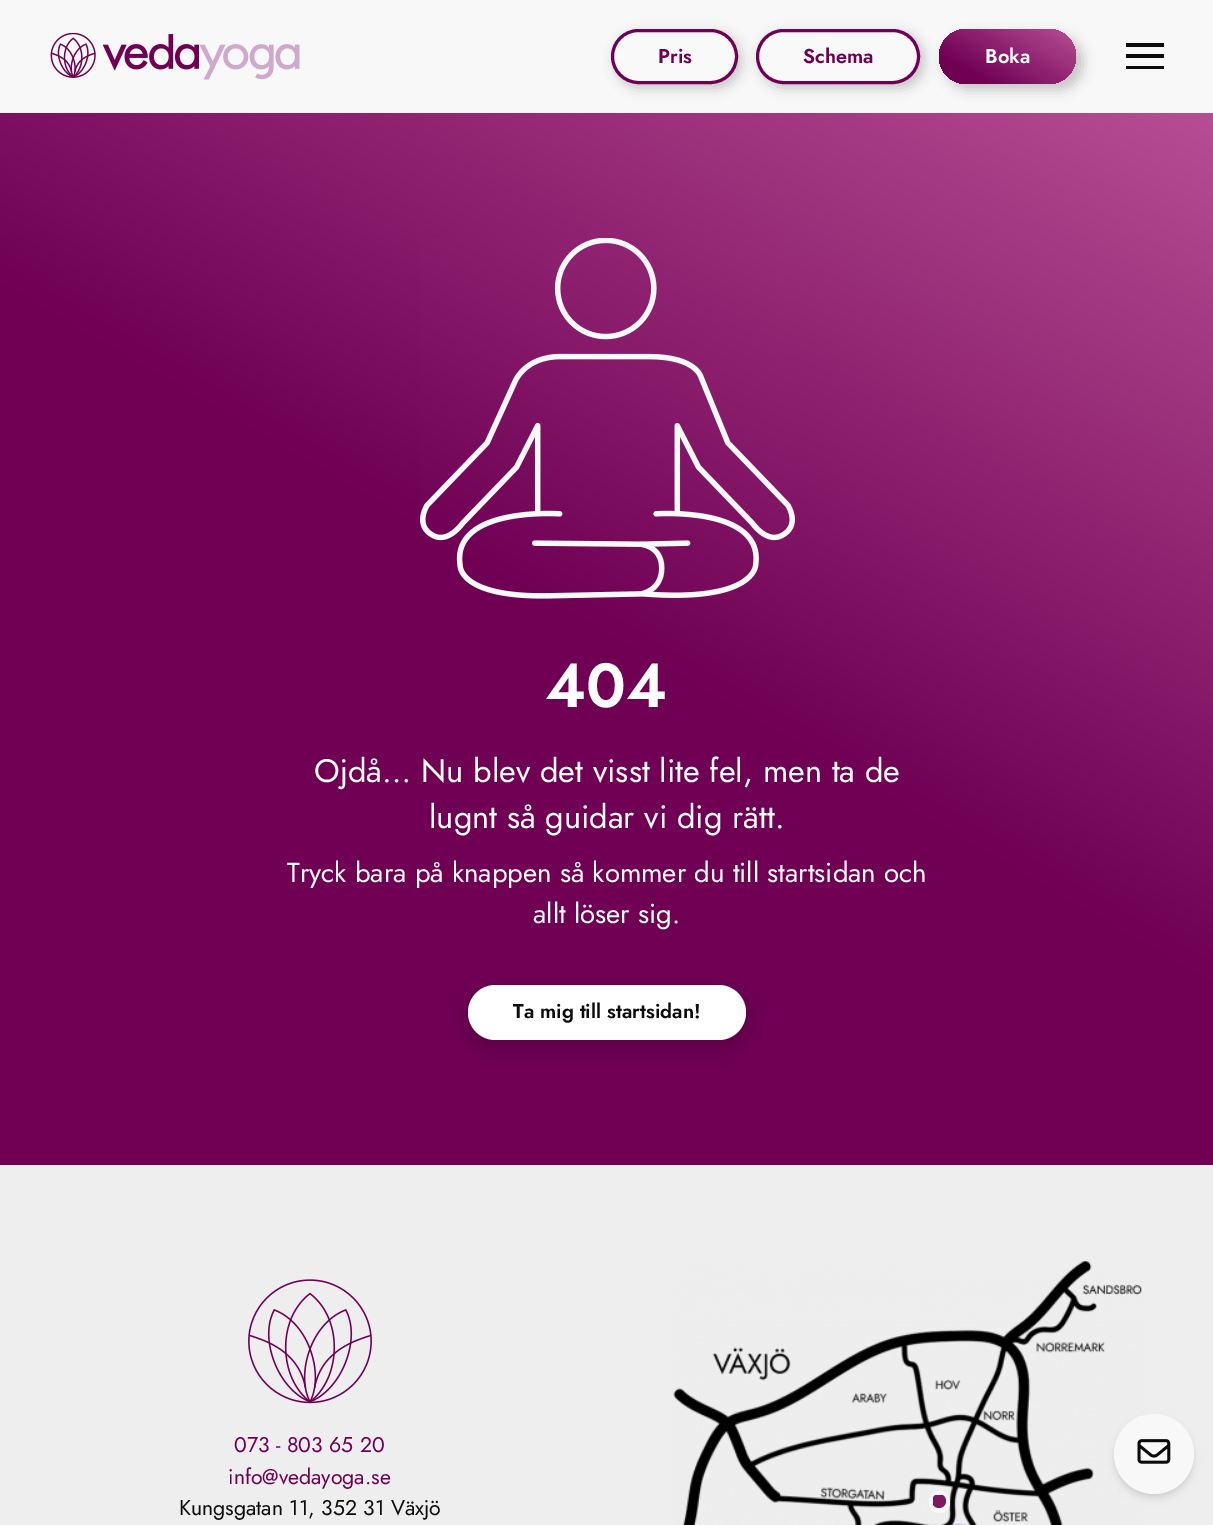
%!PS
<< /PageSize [1213 1525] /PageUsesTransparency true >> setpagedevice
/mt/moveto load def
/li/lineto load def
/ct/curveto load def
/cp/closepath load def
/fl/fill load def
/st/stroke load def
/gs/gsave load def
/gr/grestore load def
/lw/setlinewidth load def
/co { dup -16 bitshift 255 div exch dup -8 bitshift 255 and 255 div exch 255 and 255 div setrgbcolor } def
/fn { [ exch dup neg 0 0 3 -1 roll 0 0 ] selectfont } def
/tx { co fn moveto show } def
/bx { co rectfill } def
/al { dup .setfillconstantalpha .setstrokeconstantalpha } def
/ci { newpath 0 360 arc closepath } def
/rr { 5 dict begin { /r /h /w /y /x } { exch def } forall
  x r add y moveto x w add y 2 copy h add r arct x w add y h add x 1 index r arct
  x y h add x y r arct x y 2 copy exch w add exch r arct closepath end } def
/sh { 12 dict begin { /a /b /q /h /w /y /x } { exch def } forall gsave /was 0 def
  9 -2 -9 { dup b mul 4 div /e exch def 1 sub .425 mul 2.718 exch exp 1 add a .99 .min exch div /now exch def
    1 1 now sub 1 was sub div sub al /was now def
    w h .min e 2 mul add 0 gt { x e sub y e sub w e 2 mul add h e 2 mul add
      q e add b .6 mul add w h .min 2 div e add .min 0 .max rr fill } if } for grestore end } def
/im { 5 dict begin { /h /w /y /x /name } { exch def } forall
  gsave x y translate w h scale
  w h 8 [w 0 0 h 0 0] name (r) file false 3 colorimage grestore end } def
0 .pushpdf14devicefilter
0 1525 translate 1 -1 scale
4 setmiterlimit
0 0 1213 1525 16#F8F8F8 bx
(media/1.raw) 50 33 250 47 im
gs
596 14 mt 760 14 li 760 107 li 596 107 li cp 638.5 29 mt 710.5 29 li 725.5 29 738 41.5 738 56.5 ct 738 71.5 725.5 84 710.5 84 ct 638.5 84 li 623.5 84 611 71.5 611 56.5 ct 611 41.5 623.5 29 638.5 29 ct cp eoclip newpath
16#000000 co
615 33 126 55 27.5 6 .2 sh
gr
0.2 al
16#FFFFFF co
612.5 30.5 124 52 26 rr fl
1 al
16#6F0054 co
3 lw
612.5 30.5 124 52 26 rr st
gs
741 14 mt 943 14 li 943 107 li 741 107 li cp 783.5 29 mt 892.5 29 li 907.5 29 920 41.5 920 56.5 ct 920 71.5 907.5 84 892.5 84 ct 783.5 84 li 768.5 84 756 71.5 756 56.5 ct 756 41.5 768.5 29 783.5 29 ct cp eoclip newpath
16#000000 co
760 33 164 55 27.5 6 .2 sh
gr
0.2 al
16#FFFFFF co
757.5 30.5 161 52 26 rr fl
1 al
16#6F0054 co
757.5 30.5 161 52 26 rr st
16#000000 co
945 35 138 55 27.5 6 .2 sh
gs 939 29 137 55 27.5 rr clip newpath
<< /ShadingType 2 /ColorSpace /DeviceRGB /Coords [892 136 985 -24] /Extend [true true] /Function << /FunctionType 3 /Domain [0 1] /Functions [<< /FunctionType 2 /Domain [0 1] /C0 [.435 0 .329] /C1 [.435 0 .329] /N 1 >> << /FunctionType 2 /Domain [0 1] /C0 [.435 0 .329] /C1 [.718 .306 .58] /N 1 >>] /Bounds [.5] /Encode [0 1 0 1] >> >> shfill gr
1126 43 38 4 16#0C0C0C bx
1126 54 38 4 16#0C0C0C bx
1126 66 38 3 16#0C0C0C bx
gs 0 113 mt 1213 113 li 1213 1165 li 0 1165 li cp clip newpath
<< /ShadingType 2 /ColorSpace /DeviceRGB /Coords [227 1296 986 -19] /Extend [true true] /Function << /FunctionType 3 /Domain [0 1] /Functions [<< /FunctionType 2 /Domain [0 1] /C0 [.435 0 .329] /C1 [.435 0 .329] /N 1 >> << /FunctionType 2 /Domain [0 1] /C0 [.435 0 .329] /C1 [.718 .306 .58] /N 1 >>] /Bounds [.5] /Encode [0 1 0 1] >> >> shfill gr
(media/2.raw) 420 238 375 361 im
16#000000 co
468 991 278 55 27.5 9.5 .2 sh
16#FFFFFF co
468 985 278 55 27.5 rr fl
0 1165 1213 360 16#EEEEEE bx
(media/3.raw) 248 1279 124 125 im
(media/4.raw) 673 1261 469 264 im
16#F8F8F8 co
929 1491 21 22 10.5 rr fl
gs
933 1495 13 14 rectclip
16#7D1964 co
939 1501 7 ci fl
gr
16#000000 co
1115 1418 78 77 38.5 2.5 .06 sh
1115 1420 78 78 39 4 .1 sh
16#F8F8F8 co
1154 1454 40 ci fl
(media/5.raw) 1137 1439 34 25 im
(Pris) 658 63 /Jost-SemiBold 20 16#6F0054 tx
(Schema) 803 63 /Jost-SemiBold 20 16#6F0054 tx
(Boka) 985 63 /Jost-SemiBold 20 16#FFFFFF tx
(404) 545 707 /Jost-SemiBold 62 16#FFFFFF tx
(Ojdå… Nu blev det visst lite fel, men ta de) 314 782 /Jost-Regular 32.5 16#FFFFFF tx
(lugnt så guidar vi dig rätt.) 429 828 /Jost-Regular 32.5 16#FFFFFF tx
(Tryck bara på knappen så kommer du till startsidan och) 287 882 /Jost-Regular 27.5 16#FFFFFF tx
(allt löser sig.) 533 923 /Jost-Regular 27.5 16#FFFFFF tx
(Ta mig till startsidan!) 513 1018 /Jost-SemiBold 20 16#0C0C0C tx
(073 - 803 65 20) 234 1452 /Jost-Regular 21.25 16#6F0054 tx
(info@vedayoga.se) 228 1484 /Jost-Regular 21.25 16#6F0054 tx
(Kungsgatan 11, 352 31 Växjö) 179 1515 /Jost-Regular 21.25 16#0C0C0C tx
.poppdf14devicefilter showpage
